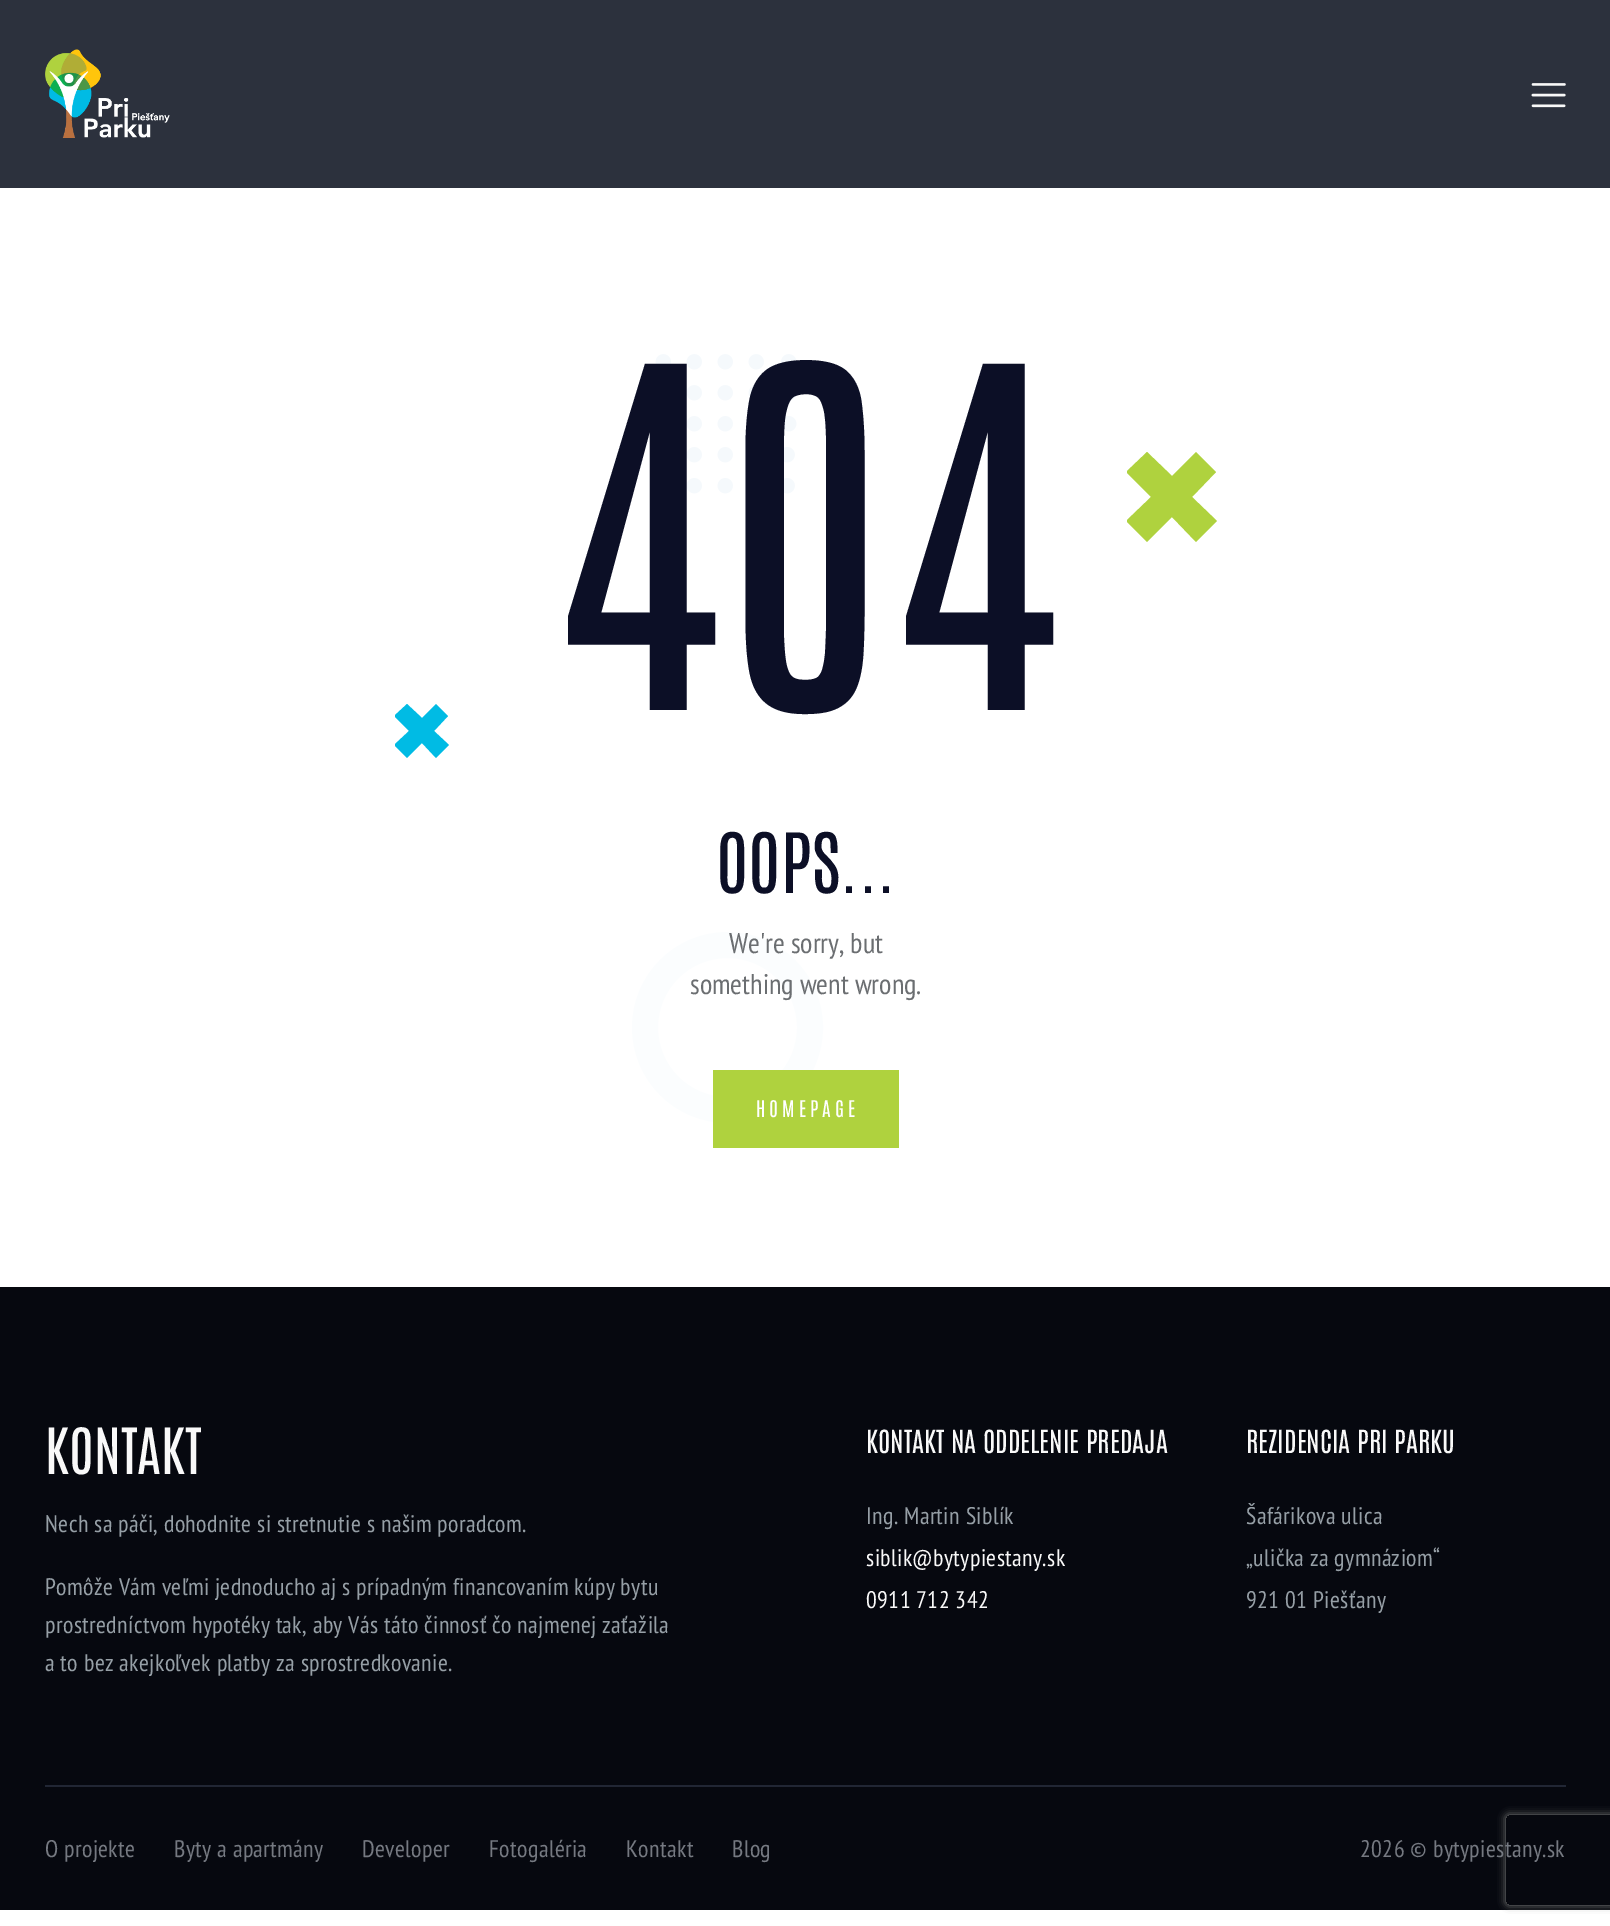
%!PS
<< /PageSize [1610 1926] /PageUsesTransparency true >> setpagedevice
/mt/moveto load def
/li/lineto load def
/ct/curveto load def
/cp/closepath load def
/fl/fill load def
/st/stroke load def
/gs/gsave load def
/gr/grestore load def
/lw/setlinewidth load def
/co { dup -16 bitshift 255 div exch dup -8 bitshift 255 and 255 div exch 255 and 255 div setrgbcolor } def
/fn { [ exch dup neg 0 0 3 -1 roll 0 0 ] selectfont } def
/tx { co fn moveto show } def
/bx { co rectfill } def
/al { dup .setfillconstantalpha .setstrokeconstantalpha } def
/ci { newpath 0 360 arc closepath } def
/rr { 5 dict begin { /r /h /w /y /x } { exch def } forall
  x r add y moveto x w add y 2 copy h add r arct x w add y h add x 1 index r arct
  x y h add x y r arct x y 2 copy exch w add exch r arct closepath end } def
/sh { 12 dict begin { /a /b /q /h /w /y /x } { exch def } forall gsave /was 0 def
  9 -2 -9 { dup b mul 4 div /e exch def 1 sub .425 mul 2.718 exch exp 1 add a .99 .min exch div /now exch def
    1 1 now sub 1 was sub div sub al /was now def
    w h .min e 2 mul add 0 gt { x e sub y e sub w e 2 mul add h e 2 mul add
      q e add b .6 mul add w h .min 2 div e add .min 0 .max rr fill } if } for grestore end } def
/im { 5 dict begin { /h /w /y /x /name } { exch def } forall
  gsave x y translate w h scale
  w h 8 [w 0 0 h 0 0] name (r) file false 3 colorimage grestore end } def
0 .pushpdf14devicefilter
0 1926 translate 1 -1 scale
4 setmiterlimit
0 0 1610 1926 16#FFFFFF bx
0 0 1610 188 16#2C313D bx
(media/1.raw) 45 49 125 89 im
(media/2.raw) 1531 83 35 25 im
(media/3.raw) 654 354 143 140 im
gs
1127 452 90 90 rectclip
16#AFD23E co
1126 521 mt 1151 497 li 1126 472 li 1147 452 li 1172 476 li 1196 452 li 1216 472 li 1192 497 li 1217 521 li 1196 542 li 1172 517 li 1147 542 li cp fl
gr
gs
395 704 54 54 rectclip
16#00BBE4 co
394 745 mt 409 731 li 394 716 li 407 704 li 422 718 li 436 704 li 448 716 li 434 731 li 449 745 li 436 758 li 422 743 li 407 758 li cp fl
gr
16#FBFDFE co
26 lw
727.5 1027.5 82.5 ci st
713 1070 186 78 16#AFD23E bx
0 1287 1610 623 16#06080F bx
45 1785 1521 2 16#212634 bx
gs
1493 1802 mt 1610 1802 li 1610 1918 li 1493 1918 li cp 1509 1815 mt 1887 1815 li 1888.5 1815 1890 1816.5 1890 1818 ct 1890 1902 li 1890 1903.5 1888.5 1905 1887 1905 ct 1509 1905 li 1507.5 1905 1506 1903.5 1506 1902 ct 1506 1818 li 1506 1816.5 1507.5 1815 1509 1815 ct cp eoclip newpath
16#808080 co
1506 1815 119 90 3 4 1 sh
gr
(404) 552 710 /Antonio-Regular 405 16#0C0F26 tx
(OOPS...) 716 893 /Antonio-Regular 70.5 16#0C0F26 tx
(We're sorry, but) 729 953 /PTSansNarrow-Regular 28.5 16#6B6E71 tx
(something went wrong.) 690 994 /PTSansNarrow-Regular 28.5 16#6B6E71 tx
/Antonio-Regular 19.5 fn
16#FFFFFF co
756 1117 mt 4 0 (HOMEPAGE) ashow
(KONTAKT) 45 1474 /Antonio-Regular 54 16#F9F9F9 tx
/PTSansNarrow-Regular 24 fn
16#969FA6 co
45 1532 mt .4 0 (Nech sa páči, dohodnite si stretnutie s našim poradcom.) ashow
45 1595 mt .4 0 (Pomôže Vám veľmi jednoducho aj s prípadným financovaním kúpy bytu) ashow
45 1633 mt .4 0 (prostredníctvom hypotéky tak, aby Vás táto činnosť čo najmenej zaťažila) ashow
45 1671 mt .4 0 (a to bez akejkoľvek platby za sprostredkovanie.) ashow
(KONTAKT NA ODDELENIE PREDAJA) 866 1453 /Antonio-Regular 27 16#F9F9F9 tx
/PTSansNarrow-Regular 24 fn
16#969FA6 co
866 1524 mt .4 0 (Ing. Martin Siblík) ashow
16#F9F9F9 co
866 1566 mt .4 0 (siblik@bytypiestany.sk) ashow
866 1608 mt .4 0 (0911 712 342) ashow
(REZIDENCIA PRI PARKU) 1246 1453 /Antonio-Regular 27 16#F9F9F9 tx
/PTSansNarrow-Regular 24 fn
16#969FA6 co
1246 1524 mt .4 0 (Šafárikova ulica) ashow
1246 1566 mt .4 0 („ulička za gymnáziom“) ashow
1246 1608 mt .4 0 (921 01 Piešťany) ashow
16#757981 co
45 1857 mt .4 0 (O projekte) ashow
174 1857 mt .4 0 (Byty a apartmány) ashow
362 1857 mt .4 0 (Developer) ashow
489 1857 mt .4 0 (Fotogaléria) ashow
626 1857 mt .4 0 (Kontakt) ashow
732 1857 mt .4 0 (Blog) ashow
1360 1857 mt .4 0 (2026 © bytypiestany.sk) ashow
.poppdf14devicefilter showpage
